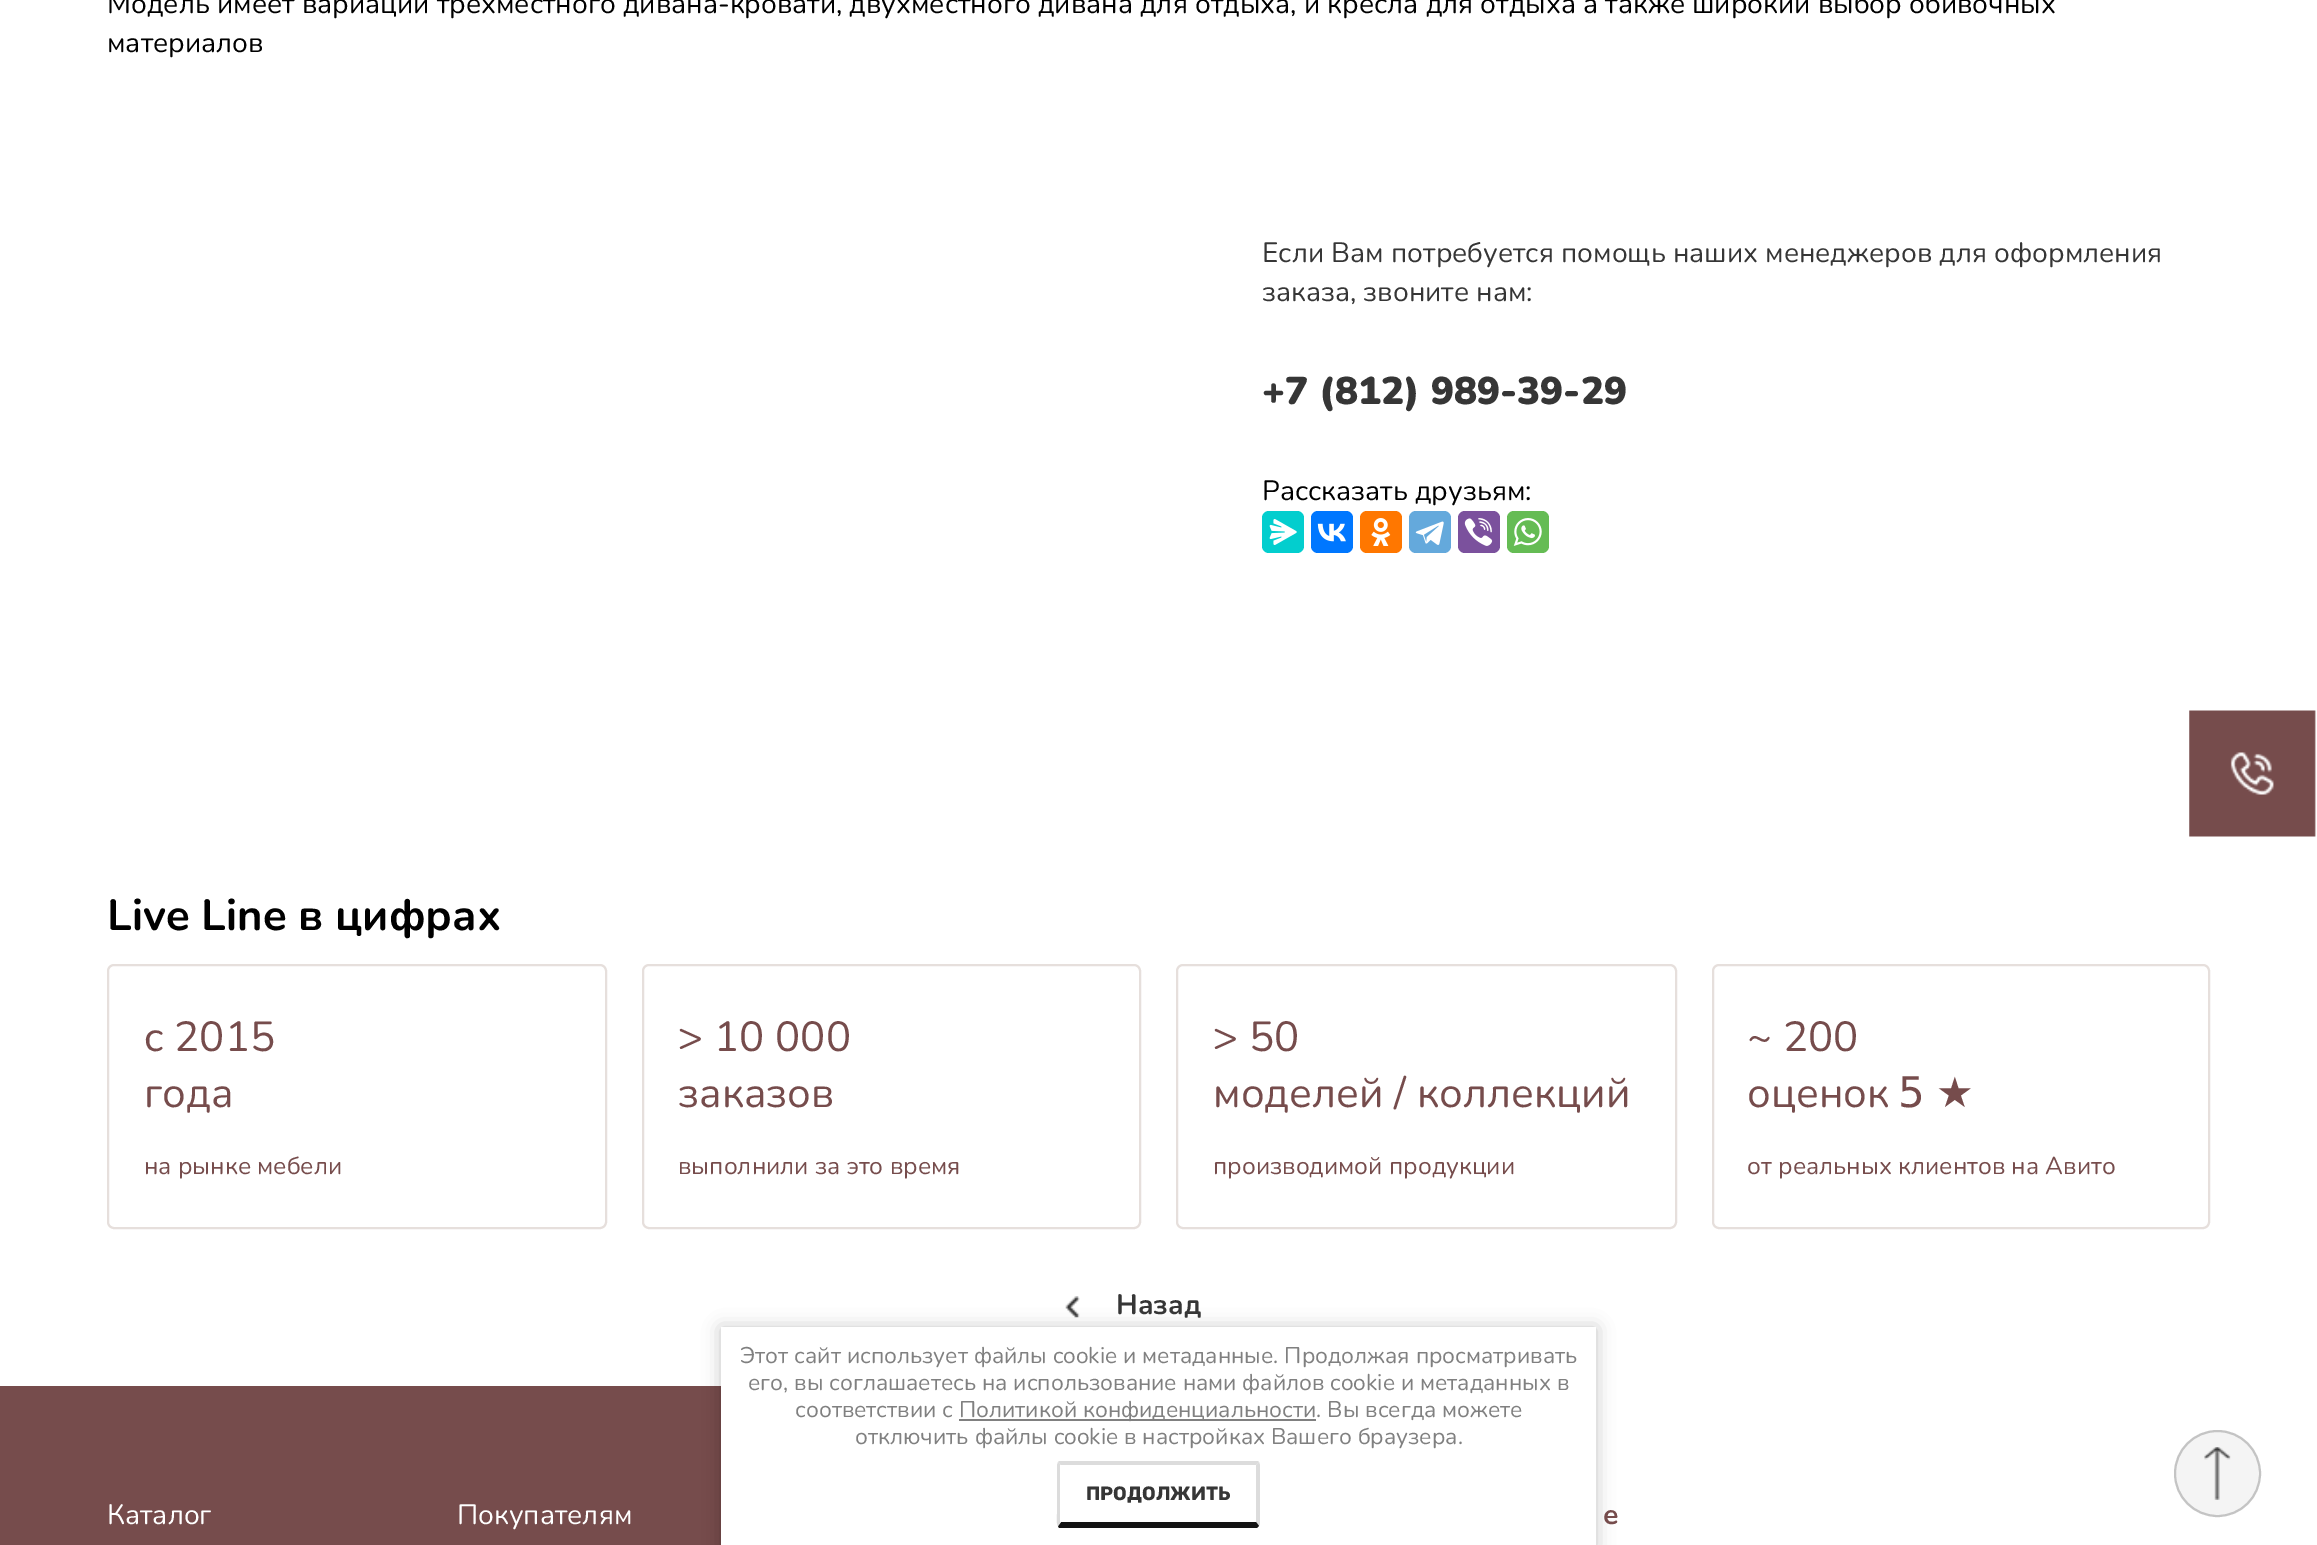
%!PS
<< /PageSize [2317 1545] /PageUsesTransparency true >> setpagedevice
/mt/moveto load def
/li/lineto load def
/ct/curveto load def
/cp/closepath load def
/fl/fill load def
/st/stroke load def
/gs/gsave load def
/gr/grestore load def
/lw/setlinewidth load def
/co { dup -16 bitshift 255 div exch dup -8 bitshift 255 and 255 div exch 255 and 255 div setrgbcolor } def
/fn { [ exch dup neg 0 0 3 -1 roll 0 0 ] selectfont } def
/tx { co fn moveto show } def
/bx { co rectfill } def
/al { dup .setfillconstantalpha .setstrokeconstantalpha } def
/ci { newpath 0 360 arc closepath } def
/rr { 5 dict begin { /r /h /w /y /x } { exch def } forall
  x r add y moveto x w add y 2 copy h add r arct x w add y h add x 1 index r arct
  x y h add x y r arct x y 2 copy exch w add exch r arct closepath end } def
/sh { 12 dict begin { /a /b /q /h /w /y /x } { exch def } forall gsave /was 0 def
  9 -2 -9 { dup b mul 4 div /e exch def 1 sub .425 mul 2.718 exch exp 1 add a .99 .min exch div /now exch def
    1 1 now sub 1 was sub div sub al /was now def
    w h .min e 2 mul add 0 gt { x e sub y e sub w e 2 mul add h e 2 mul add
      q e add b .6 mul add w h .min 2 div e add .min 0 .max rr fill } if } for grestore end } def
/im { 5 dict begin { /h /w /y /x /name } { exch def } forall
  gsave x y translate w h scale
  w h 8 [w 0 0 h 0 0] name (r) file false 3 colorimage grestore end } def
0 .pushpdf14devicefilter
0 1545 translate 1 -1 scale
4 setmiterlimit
0 0 2317 1545 16#FFFFFF bx
16#03CECE co
1262 511 42 42 7 rr fl
(media/1.raw) 1269 519 28 26 im
16#0077FF co
1311 511 42 42 7 rr fl
(media/2.raw) 1317 523 29 19 im
16#FF7700 co
1360 511 42 42 7 rr fl
(media/3.raw) 1371 518 20 28 im
16#64A9DC co
1409 511 42 42 7 rr fl
(media/4.raw) 1415 521 29 24 im
16#7B519D co
1458 511 42 42 7 rr fl
(media/5.raw) 1464 518 29 28 im
16#65BC54 co
1507 511 42 42 7 rr fl
(media/6.raw) 1513 518 29 28 im
16#E6DFDC co
2 lw
108 965 498 263 6 rr st
643 965 497 263 6 rr st
1177 965 499 263 6 rr st
1713 965 496 263 6 rr st
(media/7.raw) 1065 1296 15 22 im
(media/8.raw) 2189 710 127 127 im
gs
0 1386 2317 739 rectclip
16#764C4C co
-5 1384 mt 1183 1384 li 1186 1384 1188 1386 1188 1389 ct 1188 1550 li -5 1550 li cp fl
gr
16#000000 co
721 1328 875 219 0 9 .23 sh
721 1327 875 218 16#FFFFFF bx
959 1419 357 2 16#808080 bx
16#DCDCDC co
1058 1462 mt 1059 1461 li 1258 1461 li 1259 1462 li 1256 1465 li 1061 1465 li cp fl
1260 1524 mt 1260 1465 li 1259 1462 li 1256 1465 li 1256 1522 li 1259 1526 li cp fl
16#131313 co
1059 1528 mt 1058 1526 li 1061 1522 li 1256 1522 li 1259 1526 li 1257 1528 li cp fl
16#DCDCDC co
1060 1465 mt 1061 1465 li 1058 1462 li 1057 1465 li 1057 1514 li 1057 1516 1056 1523 1058 1526 ct 1061 1522 li 1060 1522 li cp fl
16#F4F4F4 co
2217.5 1473.5 43.5 ci fl
0.25 al
16#363636 co
2217.5 1473.5 42.5 ci st
1 al
(media/9.raw) 2204 1447 27 53 im
(Модель имеет вариации трехместного дивана-кровати, двухместного дивана для отдыха, и кресла для отдыха а также широкий выбор обивочных) 107 13 /Nunito-Regular 28 16#000000 tx
(материалов) 107 52 /Nunito-Regular 28 16#000000 tx
(Если Вам потребуется помощь наших менеджеров для оформления) 1262 262 /Nunito-Regular 28 16#363636 tx
(заказа, звоните нам:) 1262 301 /Nunito-Regular 28 16#363636 tx
(+7 \(812\) 989-39-29) 1262 404 /Nunito-Black 38.5 16#363636 tx
(Рассказать друзьям:) 1262 500 /Nunito-Regular 28 16#000000 tx
(Live Line в цифрах) 107 930 /Nunito-Bold 43.75 16#000000 tx
(c 2015) 144 1051 /Nunito-Regular 42 16#764C4C tx
(года) 144 1107 /Nunito-Regular 42 16#764C4C tx
(на рынке мебели) 144 1174 /Nunito-Regular 24.5 16#764C4C tx
(> 10 000) 678 1051 /Nunito-Regular 42 16#764C4C tx
(заказов) 678 1107 /Nunito-Regular 42 16#764C4C tx
(выполнили за это время) 678 1174 /Nunito-Regular 24.5 16#764C4C tx
(> 50) 1213 1051 /Nunito-Regular 42 16#764C4C tx
(моделей / коллекций) 1213 1107 /Nunito-Regular 42 16#764C4C tx
(производимой продукции) 1213 1174 /Nunito-Regular 24.5 16#764C4C tx
(~ 200) 1747 1051 /Nunito-Regular 42 16#764C4C tx
(оценок) 1747 1107 /Nunito-Regular 42 16#764C4C tx
/DejaVuSans-Regular 42 fn
1898 1107 mt -2 0 32 (5 ★) widthshow
(от реальных клиентов на Авито) 1747 1174 /Nunito-Regular 24.5 16#764C4C tx
(Назад) 1116 1314 /Nunito-Bold 28 16#363636 tx
(Этот сайт использует файлы cookie и метаданные. Продолжая просматривать) 740 1363 /Nunito-Regular 22.75 16#808080 tx
(его, вы соглашаетесь на использование нами файлов cookie и метаданных в) 748 1390 /Nunito-Regular 22.75 16#808080 tx
(соответствии с) 795 1417 /Nunito-Regular 22.75 16#808080 tx
(Политикой конфиденциальности. Вы всегда можете) 959 1417 /Nunito-Regular 22.75 16#808080 tx
(отключить файлы cookie в настройках Вашего браузера.) 855 1444 /Nunito-Regular 22.75 16#808080 tx
(ПРОДОЛЖИТЬ) 1086 1500 /Rubik-Bold 19.25 16#363636 tx
(Каталог) 107 1524 /Nunito-Regular 28 16#FFFFFF tx
(Покупателям) 457 1524 /Nunito-Regular 28 16#FFFFFF tx
(е) 1603 1524 /Nunito-Bold 28 16#764C4C tx
.poppdf14devicefilter showpage
